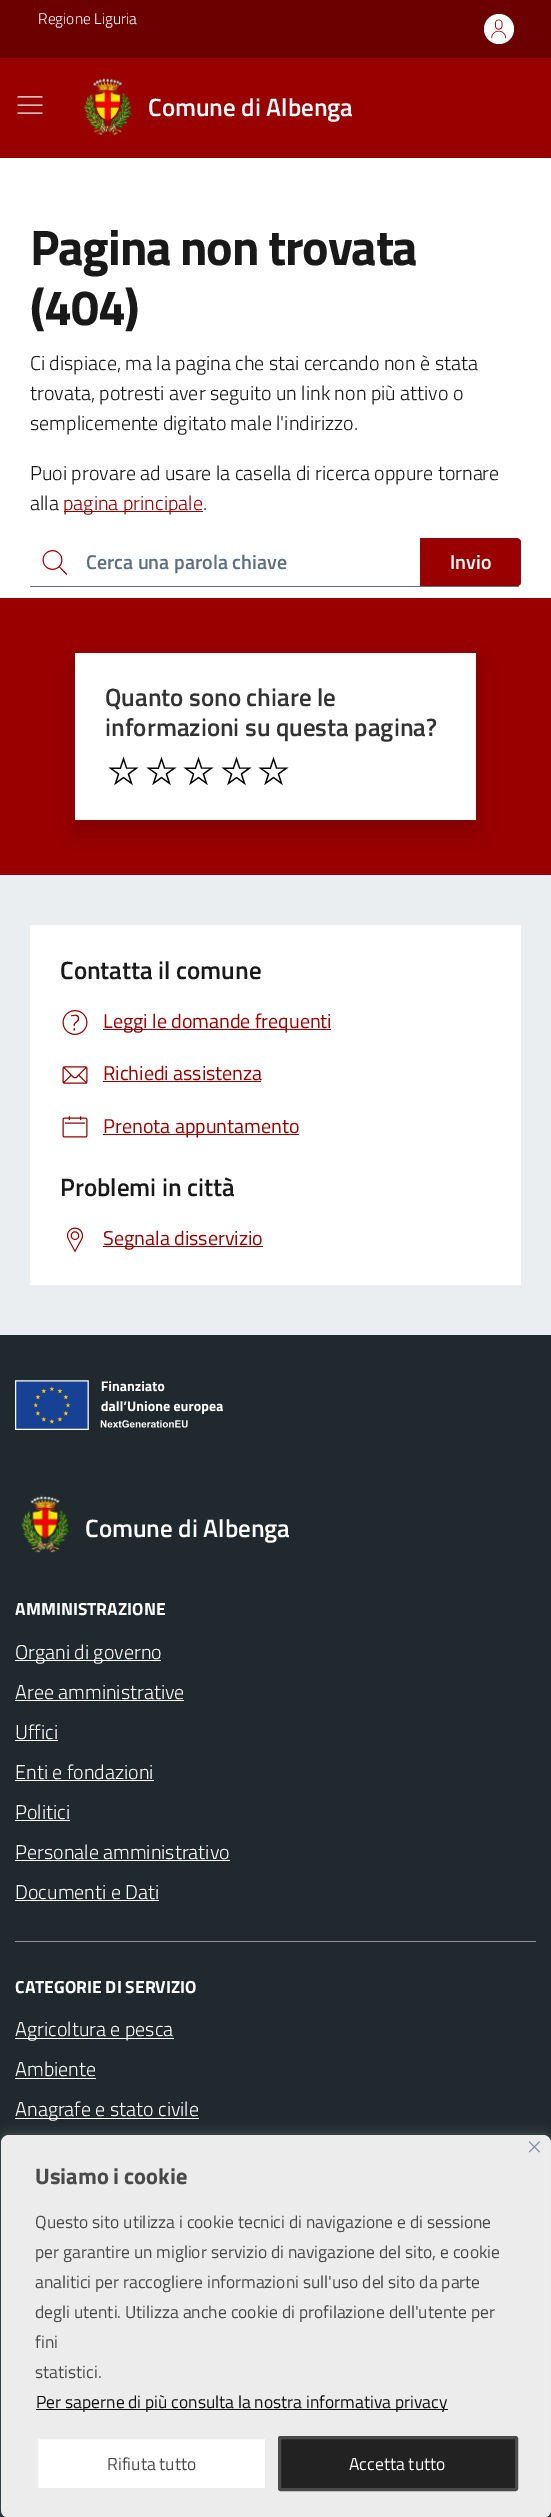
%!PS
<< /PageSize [551 2517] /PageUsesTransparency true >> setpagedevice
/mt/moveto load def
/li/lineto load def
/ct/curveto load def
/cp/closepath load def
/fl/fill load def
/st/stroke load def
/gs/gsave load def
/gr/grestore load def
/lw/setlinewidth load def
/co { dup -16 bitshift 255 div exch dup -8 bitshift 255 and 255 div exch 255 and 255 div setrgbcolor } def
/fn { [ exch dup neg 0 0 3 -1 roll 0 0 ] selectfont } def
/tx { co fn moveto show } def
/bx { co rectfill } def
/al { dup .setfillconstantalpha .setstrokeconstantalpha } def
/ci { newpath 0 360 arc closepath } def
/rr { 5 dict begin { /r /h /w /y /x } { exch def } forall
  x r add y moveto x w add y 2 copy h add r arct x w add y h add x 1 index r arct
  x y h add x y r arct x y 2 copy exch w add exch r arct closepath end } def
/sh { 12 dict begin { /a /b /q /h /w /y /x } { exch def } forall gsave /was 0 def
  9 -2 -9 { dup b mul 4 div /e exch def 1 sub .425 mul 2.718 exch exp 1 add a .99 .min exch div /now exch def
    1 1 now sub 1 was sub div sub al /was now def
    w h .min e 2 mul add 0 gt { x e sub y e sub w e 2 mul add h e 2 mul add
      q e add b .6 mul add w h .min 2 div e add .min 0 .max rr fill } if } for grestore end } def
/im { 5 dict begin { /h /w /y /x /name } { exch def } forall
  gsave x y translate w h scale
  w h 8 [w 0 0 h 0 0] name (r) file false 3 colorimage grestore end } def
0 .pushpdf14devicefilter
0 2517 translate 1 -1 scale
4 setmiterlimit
0 0 551 2517 16#FFFFFF bx
0 58 551 100 16#990000 bx
0 0 551 58 16#6C0000 bx
16#FFFFFF co
499 29 15 ci fl
(media/1.raw) 491 19 16 20 im
(media/2.raw) 17 96 26 18 im
(media/3.raw) 83 77 49 59 im
64 511 139 1 16#990000 bx
(media/4.raw) 42 550 26 25 im
30 586 489 1 16#5D7083 bx
16#990000 co
420 538 mt 516 538 li 519 538 521 540 521 542 ct 521 582 li 521 585 519 586 516 586 ct 420 586 li cp fl
0 598 551 277 16#990000 bx
16#000000 co
75 663 401 167 0 10 .15 sh
75 653 401 167 16#FFFFFF bx
(media/5.raw) 108 756 31 30 im
(media/5.raw) 146 756 31 30 im
(media/5.raw) 183 756 31 30 im
(media/5.raw) 221 756 31 30 im
(media/5.raw) 258 756 31 30 im
0 875 551 460 16#EBEEF0 bx
30 925 491 360 16#FFFFFF bx
(media/6.raw) 62 1010 26 25 im
103 1029 228 1 16#990000 bx
(media/7.raw) 62 1066 26 18 im
103 1081 158 1 16#990000 bx
(media/8.raw) 62 1116 26 22 im
103 1134 196 1 16#990000 bx
(media/9.raw) 66 1227 18 26 im
103 1246 160 1 16#990000 bx
0 1335 551 1182 16#202A2E bx
(media/10.raw) 15 1380 208 50 im
(media/11.raw) 21 1495 48 58 im
15 1660 146 1 16#FFFFFF bx
15 1700 169 1 16#FFFFFF bx
15 1740 43 1 16#FFFFFF bx
15 1780 139 1 16#FFFFFF bx
15 1820 55 1 16#FFFFFF bx
15 1860 215 1 16#FFFFFF bx
15 1900 144 1 16#FFFFFF bx
15 1941 521 1 16#909597 bx
15 2038 159 1 16#FFFFFF bx
15 2078 81 1 16#FFFFFF bx
15 2118 184 1 16#FFFFFF bx
16#ACABAB co
1 2134 550 382 8 6 .3 sh
16#ECECEC co
1.5 2135.5 549 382 7.5 rr gs fl gr
16#EBEBEB co
st
(media/12.raw) 529 2141 11 12 im
36 2409 412 1 16#111111 bx
16#FFFFFF co
36.5 2437.5 230 52 1 rr gs fl gr
16#ECECEC co
3 lw
st
16#222222 co
279.5 2437.5 237 52 1 rr gs fl gr
16#4A4A4A co
st
(Regione Liguria) 38 24 /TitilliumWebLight-Light 15.5 16#FFFFFF tx
(Comune di Albenga) 148 116 /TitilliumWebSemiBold-SemiBold 25 16#FFFFFF tx
/TitilliumWeb-Bold 50 fn
16#191919 co
30 265 mt -1.25 0 (Pagina non trovata) ashow
30 325 mt -1.25 0 (\(404\)) ashow
(Ci dispiace, ma la pagina che stai cercando non è stata) 30 370 /TitilliumWebLight-Light 20 16#191919 tx
(trovata, potresti aver seguito un link non più attivo o) 30 400 /TitilliumWebLight-Light 20 16#191919 tx
(semplicemente digitato male l'indirizzo.) 30 430 /TitilliumWebLight-Light 20 16#191919 tx
(Puoi provare ad usare la casella di ricerca oppure tornare) 30 480 /TitilliumWebLight-Light 20 16#191919 tx
(alla) 30 510 /TitilliumWebLight-Light 20 16#191919 tx
(pagina principale) 63 510 /TitilliumWebLight-Light 20 16#990000 tx
(.) 203 510 /TitilliumWebLight-Light 20 16#191919 tx
(Cerca una parola chiave) 86 569 /TitilliumWebSemiBold-SemiBold 20 16#5D7083 tx
(Invio) 450 569 /TitilliumWebSemiBold-SemiBold 20 16#FFFFFF tx
(Quanto sono chiare le) 105 706 /TitilliumWebSemiBold-SemiBold 25 16#333333 tx
(informazioni su questa pagina?) 105 736 /TitilliumWebSemiBold-SemiBold 25 16#333333 tx
(Contatta il comune) 60 979 /TitilliumWebSemiBold-SemiBold 25 16#191919 tx
(Leggi le domande frequenti) 103 1028 /TitilliumWeb-Regular 20 16#990000 tx
(Richiedi assistenza) 103 1080 /TitilliumWeb-Regular 20 16#990000 tx
(Prenota appuntamento) 103 1133 /TitilliumWeb-Regular 20 16#990000 tx
(Problemi in città) 60 1196 /TitilliumWebSemiBold-SemiBold 25 16#191919 tx
(Segnala disservizio) 103 1245 /TitilliumWeb-Regular 20 16#990000 tx
(Comune di Albenga) 85 1537 /TitilliumWebSemiBold-SemiBold 25 16#FFFFFF tx
(AMMINISTRAZIONE) 15 1615 /TitilliumWeb-Bold 17.5 16#FFFFFF tx
(Organi di governo) 15 1659 /TitilliumWebLight-Light 20 16#FFFFFF tx
(Aree amministrative) 15 1699 /TitilliumWebLight-Light 20 16#FFFFFF tx
(Uffici) 15 1739 /TitilliumWebLight-Light 20 16#FFFFFF tx
(Enti e fondazioni) 15 1779 /TitilliumWebLight-Light 20 16#FFFFFF tx
(Politici) 15 1819 /TitilliumWebLight-Light 20 16#FFFFFF tx
(Personale amministrativo) 15 1859 /TitilliumWebLight-Light 20 16#FFFFFF tx
(Documenti e Dati) 15 1899 /TitilliumWebLight-Light 20 16#FFFFFF tx
(CATEGORIE DI SERVIZIO) 15 1993 /TitilliumWeb-Bold 17.5 16#FFFFFF tx
(Agricoltura e pesca) 15 2036 /TitilliumWebLight-Light 20 16#FFFFFF tx
(Ambiente) 15 2076 /TitilliumWebLight-Light 20 16#FFFFFF tx
(Anagrafe e stato civile) 15 2116 /TitilliumWebLight-Light 20 16#FFFFFF tx
(Usiamo i cookie) 35 2184 /TitilliumWeb-Bold 22.5 16#4A4A4A tx
(Questo sito utilizza i cookie tecnici di navigazione e di sessione) 35 2228 /TitilliumWeb-Regular 17.5 16#4A4A4A tx
(per garantire un miglior servizio di navigazione del sito, e cookie) 35 2258 /TitilliumWeb-Regular 17.5 16#4A4A4A tx
(analitici per raccogliere informazioni sull'uso del sito da parte) 35 2288 /TitilliumWeb-Regular 17.5 16#4A4A4A tx
(degli utenti. Utilizza anche cookie di profilazione dell'utente per) 35 2318 /TitilliumWeb-Regular 17.5 16#4A4A4A tx
(fini) 35 2348 /TitilliumWeb-Regular 17.5 16#4A4A4A tx
(statistici.) 35 2378 /TitilliumWeb-Regular 17.5 16#4A4A4A tx
(Per saperne di più consulta la nostra informativa privacy) 36 2408 /TitilliumWeb-Regular 17.5 16#111111 tx
(Rifiuta tutto) 107 2470 /TitilliumWeb-Regular 17.5 16#4A4A4A tx
(Accetta tutto) 349 2470 /TitilliumWeb-Regular 17.5 16#FFFFFF tx
.poppdf14devicefilter showpage
